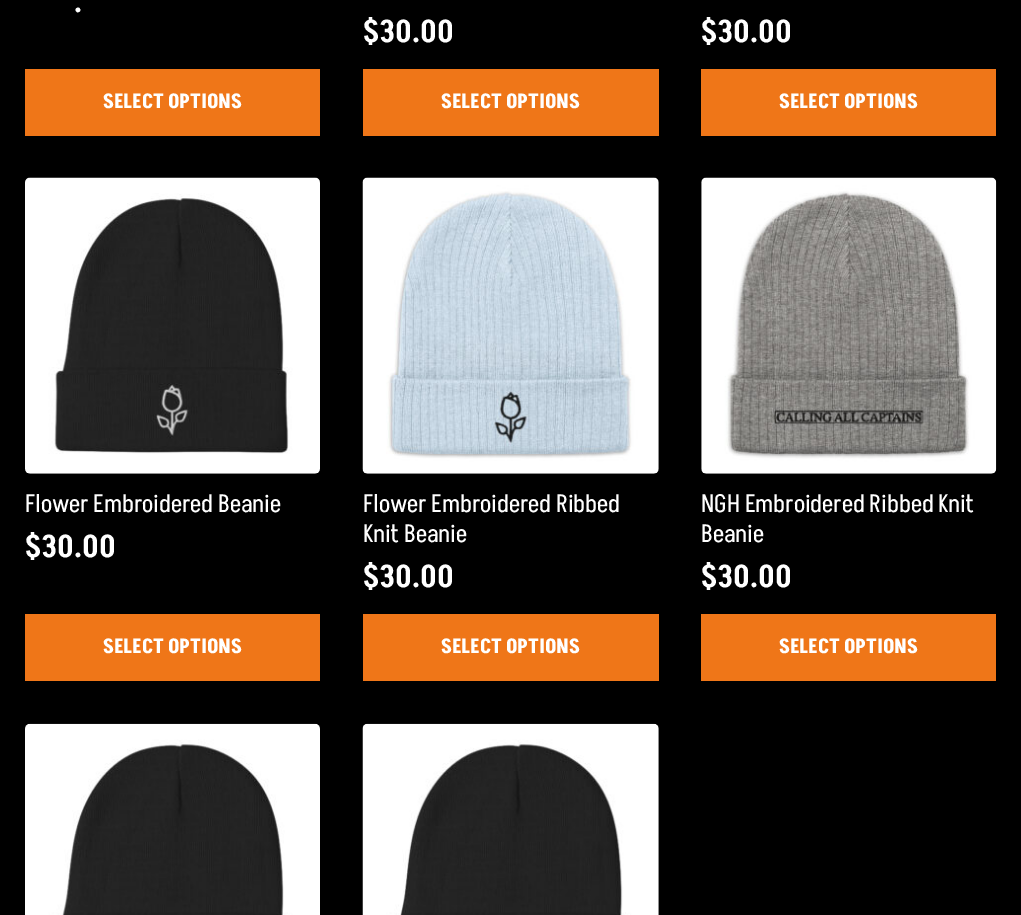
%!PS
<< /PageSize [1021 915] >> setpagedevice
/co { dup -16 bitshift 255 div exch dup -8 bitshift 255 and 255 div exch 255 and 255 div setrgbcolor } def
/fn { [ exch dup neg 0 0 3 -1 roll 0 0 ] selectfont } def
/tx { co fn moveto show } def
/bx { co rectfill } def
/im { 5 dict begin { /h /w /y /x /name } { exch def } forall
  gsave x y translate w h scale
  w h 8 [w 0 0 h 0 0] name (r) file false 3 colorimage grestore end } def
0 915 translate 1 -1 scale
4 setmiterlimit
0 0 1021 915 16#000000 bx
25 69 295 67 16#EF7618 bx
363 69 296 67 16#EF7618 bx
701 69 295 67 16#EF7618 bx
(media/1.raw) 25 177 295 297 im
25 614 295 67 16#EF7618 bx
(media/2.raw) 362 177 297 297 im
363 614 296 67 16#EF7618 bx
(media/3.raw) 701 177 296 297 im
701 614 295 67 16#EF7618 bx
(media/4.raw) 25 723 295 192 im
(media/5.raw) 362 723 297 192 im
(.) 74 12 /Akshar-SemiBold 31 16#FFFFFF tx
(SELECT OPTIONS) 103 108 /Akshar-Bold 20 16#FFFFFF tx
($30.00) 363 42 /Akshar-SemiBold 31 16#FFFFFF tx
(SELECT OPTIONS) 441 108 /Akshar-Bold 20 16#FFFFFF tx
($30.00) 701 42 /Akshar-SemiBold 31 16#FFFFFF tx
(SELECT OPTIONS) 779 108 /Akshar-Bold 20 16#FFFFFF tx
(Flower Embroidered Beanie) 25 512 /Akshar-Regular 25 16#FFFFFF tx
($30.00) 25 557 /Akshar-SemiBold 31 16#FFFFFF tx
(SELECT OPTIONS) 103 653 /Akshar-Bold 20 16#FFFFFF tx
(Flower Embroidered Ribbed) 363 512 /Akshar-Regular 25 16#FFFFFF tx
(Knit Beanie) 363 542 /Akshar-Regular 25 16#FFFFFF tx
($30.00) 363 587 /Akshar-SemiBold 31 16#FFFFFF tx
(SELECT OPTIONS) 441 653 /Akshar-Bold 20 16#FFFFFF tx
(NGH Embroidered Ribbed Knit) 701 512 /Akshar-Regular 25 16#FFFFFF tx
(Beanie) 701 542 /Akshar-Regular 25 16#FFFFFF tx
($30.00) 701 587 /Akshar-SemiBold 31 16#FFFFFF tx
(SELECT OPTIONS) 779 653 /Akshar-Bold 20 16#FFFFFF tx
showpage
